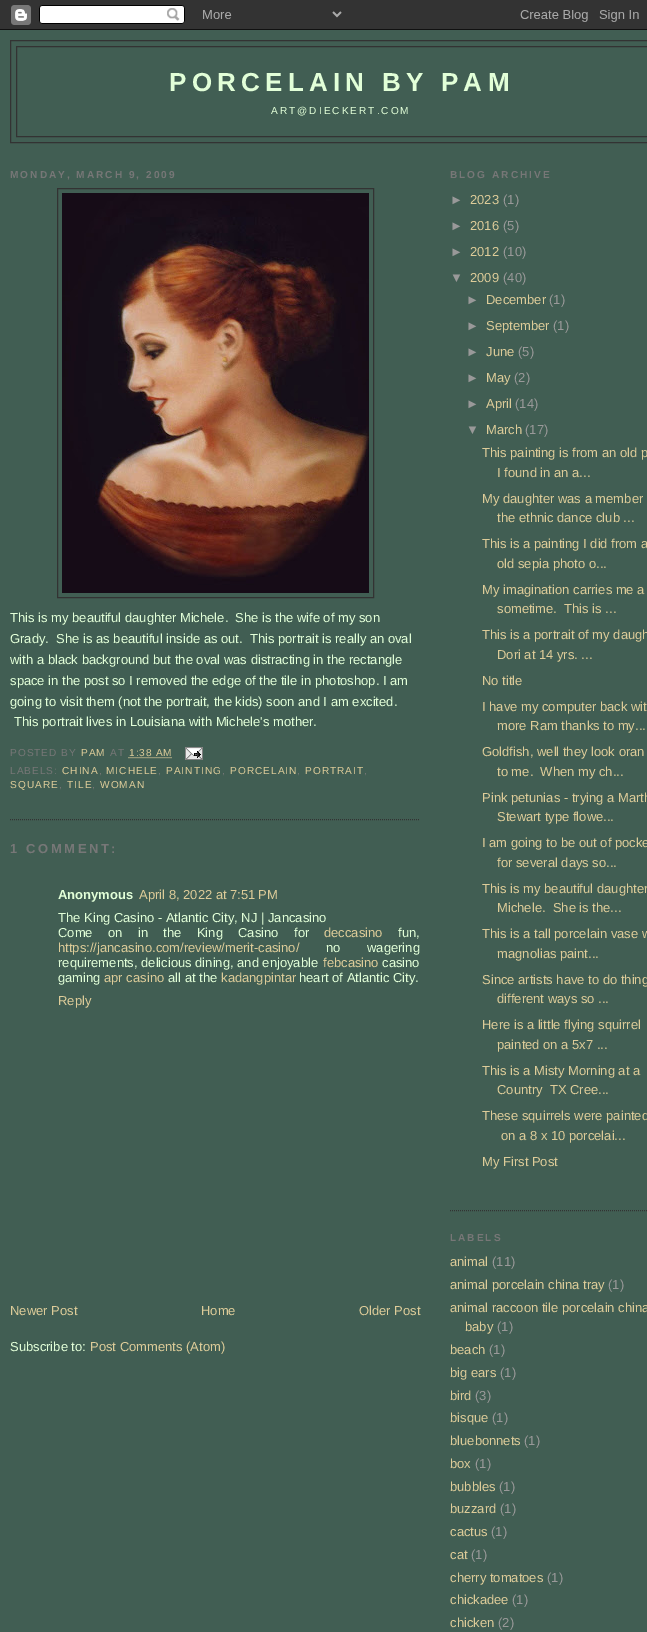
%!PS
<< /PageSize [647 1632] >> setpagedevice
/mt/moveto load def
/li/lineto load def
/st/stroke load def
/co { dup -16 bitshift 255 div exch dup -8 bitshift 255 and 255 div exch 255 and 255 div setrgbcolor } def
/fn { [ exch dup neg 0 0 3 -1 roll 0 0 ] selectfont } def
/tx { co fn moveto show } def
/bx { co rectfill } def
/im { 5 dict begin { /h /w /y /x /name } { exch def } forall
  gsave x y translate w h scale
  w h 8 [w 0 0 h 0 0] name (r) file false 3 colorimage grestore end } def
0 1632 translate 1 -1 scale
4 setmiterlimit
0 0 647 1632 16#415E53 bx
(media/1.raw) 0 0 647 30 im
16#333333 co
10.5 40.5 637 102 rectstroke
16.5 46.5 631 90 rectstroke
[1 1] 0 setdash
10 819.5 mt 420 819.5 li st
[] 0 setdash
57.5 188.5 316 409 rectstroke
(media/2.raw) 62 193 307 400 im
16#DDCC99 co
[1 1] 0 setdash
128.5 757.5 mt 172.5 757.5 li st
(media/3.raw) 185 747 18 13 im
16#333333 co
450 1210.5 mt 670 1210.5 li st
/LiberationSans-Bold 26 fn
16#E2FFD8 co
169 91 mt 5.25 0 (PORCELAIN BY PAM) ashow
/LiberationSans-Regular 10.1 fn
271 114 mt 2 0 (ART@DIECKERT.COM) ashow
/LiberationSans-Bold 10.1 fn
16#777777 co
10 178 mt 2 0 (MONDAY, MARCH 9, 2009) ashow
(This is my beautiful daughter Michele.  She is the wife of my son) 10 622 /LiberationSans-Regular 13 16#E2FFD8 tx
(Grady.  She is as beautiful inside as out.  This portrait is really an oval) 10 643 /LiberationSans-Regular 13 16#E2FFD8 tx
(with a black background but the oval was distracting in the rectangle) 10 664 /LiberationSans-Regular 13 16#E2FFD8 tx
(space in the post so I removed the edge of the tile in photoshop. I am) 10 685 /LiberationSans-Regular 13 16#E2FFD8 tx
(going to visit them \(not the portrait, the kids\) soon and I am excited.) 10 706 /LiberationSans-Regular 13 16#E2FFD8 tx
(This portrait lives in Louisiana with Michele's mother.) 14 726 /LiberationSans-Regular 13 16#E2FFD8 tx
/LiberationSans-Regular 10.1 fn
16#777777 co
10 756 mt 1 0 (POSTED BY) ashow
16#DDCC99 co
81 756 mt 1 0 (PAM) ashow
16#777777 co
110 756 mt 1 0 (AT) ashow
16#DDCC99 co
129 756 mt 1 0 (1:38 AM) ashow
16#777777 co
10 774 mt 1 0 (LABELS:) ashow
16#DDCC99 co
62 774 mt 1 0 (CHINA) ashow
16#777777 co
99 774 mt 1 0 (,) ashow
16#DDCC99 co
106 774 mt 1 0 (MICHELE) ashow
16#777777 co
158 774 mt 1 0 (,) ashow
16#DDCC99 co
166 774 mt 1 0 (PAINTING) ashow
16#777777 co
222 774 mt 1 0 (,) ashow
16#DDCC99 co
230 774 mt 1 0 (PORCELAIN) ashow
16#777777 co
297 774 mt 1 0 (,) ashow
16#DDCC99 co
305 774 mt 1 0 (PORTRAIT) ashow
16#777777 co
364 774 mt 1 0 (,) ashow
16#DDCC99 co
10 788 mt 1 0 (SQUARE) ashow
16#777777 co
59 788 mt 1 0 (,) ashow
16#DDCC99 co
67 788 mt 1 0 (TILE) ashow
16#777777 co
92 788 mt 1 0 (,) ashow
16#DDCC99 co
100 788 mt 1 0 (WOMAN) ashow
/LiberationSans-Bold 13 fn
16#777777 co
10 853 mt 2.6 0 (1 COMMENT:) ashow
(Anonymous) 58 899 /LiberationSans-Bold 13 16#E2FFD8 tx
(April 8, 2022 at 7:51 PM) 139 899 /LiberationSans-Regular 13 16#DDCC99 tx
(The King Casino - Atlantic City, NJ | Jancasino) 58 922 /LiberationSans-Regular 13 16#E2FFD8 tx
58 937 mt 11.75 0 32 (Come on in the King Casino for) widthshow
(deccasino) 324 937 /LiberationSans-Regular 13 16#DDCC99 tx
(fun,) 398 937 /LiberationSans-Regular 13 16#E2FFD8 tx
(https://jancasino.com/review/merit-casino/) 58 952 /LiberationSans-Regular 13 16#DDCC99 tx
16#E2FFD8 co
326 952 mt 23 0 32 (no wagering) widthshow
(requirements, delicious dining, and enjoyable) 58 967 /LiberationSans-Regular 13 16#E2FFD8 tx
(febcasino) 323 967 /LiberationSans-Regular 13 16#DDCC99 tx
(casino) 382 967 /LiberationSans-Regular 13 16#E2FFD8 tx
(gaming) 58 982 /LiberationSans-Regular 13 16#E2FFD8 tx
(apr casino) 104 982 /LiberationSans-Regular 13 16#DDCC99 tx
(all at the) 168 982 /LiberationSans-Regular 13 16#E2FFD8 tx
(kadangpintar) 221 982 /LiberationSans-Regular 13 16#DDCC99 tx
(heart of Atlantic City.) 299 982 /LiberationSans-Regular 13 16#E2FFD8 tx
(Reply) 58 1005 /LiberationSans-Regular 13 16#DDCC99 tx
(Newer Post) 10 1315 /LiberationSans-Regular 13 16#DDCC99 tx
(Home) 201 1315 /LiberationSans-Regular 13 16#DDCC99 tx
(Older Post) 359 1315 /LiberationSans-Regular 13 16#DDCC99 tx
(Subscribe to:) 10 1351 /LiberationSans-Regular 13 16#E2FFD8 tx
(Post Comments \(Atom\)) 90 1351 /LiberationSans-Regular 13 16#DDCC99 tx
/LiberationSans-Bold 10.1 fn
16#777777 co
450 178 mt 2 0 (BLOG ARCHIVE) ashow
(►) 450 204 /LiberationSans-Regular 13 16#999999 tx
(2023) 470 204 /LiberationSans-Regular 13 16#DDCC99 tx
(\(1\)) 503 204 /LiberationSans-Regular 13 16#999999 tx
(►) 450 230 /LiberationSans-Regular 13 16#999999 tx
(2016) 470 230 /LiberationSans-Regular 13 16#DDCC99 tx
(\(5\)) 503 230 /LiberationSans-Regular 13 16#999999 tx
(►) 450 256 /LiberationSans-Regular 13 16#999999 tx
(2012) 470 256 /LiberationSans-Regular 13 16#DDCC99 tx
(\(10\)) 503 256 /LiberationSans-Regular 13 16#999999 tx
(▼) 450 282 /LiberationSans-Regular 13 16#999999 tx
(2009) 470 282 /LiberationSans-Regular 13 16#DDCC99 tx
(\(40\)) 503 282 /LiberationSans-Regular 13 16#999999 tx
(►) 466 304 /LiberationSans-Regular 13 16#999999 tx
(December) 486 304 /LiberationSans-Regular 13 16#DDCC99 tx
(\(1\)) 549 304 /LiberationSans-Regular 13 16#999999 tx
(►) 466 330 /LiberationSans-Regular 13 16#999999 tx
(September) 486 330 /LiberationSans-Regular 13 16#DDCC99 tx
(\(1\)) 553 330 /LiberationSans-Regular 13 16#999999 tx
(►) 466 356 /LiberationSans-Regular 13 16#999999 tx
(June) 486 356 /LiberationSans-Regular 13 16#DDCC99 tx
(\(5\)) 518 356 /LiberationSans-Regular 13 16#999999 tx
(►) 466 382 /LiberationSans-Regular 13 16#999999 tx
(May) 486 382 /LiberationSans-Regular 13 16#DDCC99 tx
(\(2\)) 514 382 /LiberationSans-Regular 13 16#999999 tx
(►) 466 408 /LiberationSans-Regular 13 16#999999 tx
(April) 486 408 /LiberationSans-Regular 13 16#DDCC99 tx
(\(14\)) 515 408 /LiberationSans-Regular 13 16#999999 tx
(▼) 466 434 /LiberationSans-Regular 13 16#999999 tx
(March) 486 434 /LiberationSans-Regular 13 16#DDCC99 tx
(\(17\)) 525 434 /LiberationSans-Regular 13 16#999999 tx
(This painting is from an old p) 482 457 /LiberationSans-Regular 13 16#DDCC99 tx
(I found in an a...) 497 477 /LiberationSans-Regular 13 16#DDCC99 tx
(My daughter was a member) 482 503 /LiberationSans-Regular 13 16#DDCC99 tx
(the ethnic dance club ...) 497 522 /LiberationSans-Regular 13 16#DDCC99 tx
(This is a painting I did from a) 482 548 /LiberationSans-Regular 13 16#DDCC99 tx
(old sepia photo o...) 497 568 /LiberationSans-Regular 13 16#DDCC99 tx
(My imagination carries me a) 482 594 /LiberationSans-Regular 13 16#DDCC99 tx
(sometime.  This is ...) 497 613 /LiberationSans-Regular 13 16#DDCC99 tx
(This is a portrait of my daugh) 482 639 /LiberationSans-Regular 13 16#DDCC99 tx
(Dori at 14 yrs. ...) 497 659 /LiberationSans-Regular 13 16#DDCC99 tx
(No title) 482 685 /LiberationSans-Regular 13 16#DDCC99 tx
(I have my computer back wit) 482 711 /LiberationSans-Regular 13 16#DDCC99 tx
(more Ram thanks to my...) 497 730 /LiberationSans-Regular 13 16#DDCC99 tx
(Goldfish, well they look oran) 482 756 /LiberationSans-Regular 13 16#DDCC99 tx
(to me.  When my ch...) 497 776 /LiberationSans-Regular 13 16#DDCC99 tx
(Pink petunias - trying a Marth) 482 802 /LiberationSans-Regular 13 16#DDCC99 tx
(Stewart type flowe...) 497 821 /LiberationSans-Regular 13 16#DDCC99 tx
(I am going to be out of pocke) 482 847 /LiberationSans-Regular 13 16#DDCC99 tx
(for several days so...) 497 867 /LiberationSans-Regular 13 16#DDCC99 tx
(This is my beautiful daughter) 482 893 /LiberationSans-Regular 13 16#DDCC99 tx
(Michele.  She is the...) 497 912 /LiberationSans-Regular 13 16#DDCC99 tx
(This is a tall porcelain vase w) 482 938 /LiberationSans-Regular 13 16#DDCC99 tx
(magnolias paint...) 497 958 /LiberationSans-Regular 13 16#DDCC99 tx
(Since artists have to do thing) 482 984 /LiberationSans-Regular 13 16#DDCC99 tx
(different ways so ...) 497 1003 /LiberationSans-Regular 13 16#DDCC99 tx
(Here is a little flying squirrel) 482 1029 /LiberationSans-Regular 13 16#DDCC99 tx
(painted on a 5x7 ...) 497 1049 /LiberationSans-Regular 13 16#DDCC99 tx
(This is a Misty Morning at a) 482 1075 /LiberationSans-Regular 13 16#DDCC99 tx
(Country  TX Cree...) 497 1094 /LiberationSans-Regular 13 16#DDCC99 tx
(These squirrels were painted) 482 1120 /LiberationSans-Regular 13 16#DDCC99 tx
(on a 8 x 10 porcelai...) 501 1140 /LiberationSans-Regular 13 16#DDCC99 tx
(My First Post) 482 1166 /LiberationSans-Regular 13 16#DDCC99 tx
/LiberationSans-Bold 10.1 fn
16#777777 co
450 1241 mt 2 0 (LABELS) ashow
(animal) 450 1266 /LiberationSans-Regular 13 16#DDCC99 tx
(\(11\)) 492 1266 /LiberationSans-Regular 13 16#999999 tx
(animal porcelain china tray) 450 1289 /LiberationSans-Regular 13 16#DDCC99 tx
(\(1\)) 608 1289 /LiberationSans-Regular 13 16#999999 tx
(animal raccoon tile porcelain china) 450 1312 /LiberationSans-Regular 13 16#DDCC99 tx
(baby) 465 1331 /LiberationSans-Regular 13 16#DDCC99 tx
(\(1\)) 497 1331 /LiberationSans-Regular 13 16#999999 tx
(beach) 450 1354 /LiberationSans-Regular 13 16#DDCC99 tx
(\(1\)) 489 1354 /LiberationSans-Regular 13 16#999999 tx
(big ears) 450 1377 /LiberationSans-Regular 13 16#DDCC99 tx
(\(1\)) 500 1377 /LiberationSans-Regular 13 16#999999 tx
(bird) 450 1400 /LiberationSans-Regular 13 16#DDCC99 tx
(\(3\)) 475 1400 /LiberationSans-Regular 13 16#999999 tx
(bisque) 450 1422 /LiberationSans-Regular 13 16#DDCC99 tx
(\(1\)) 492 1422 /LiberationSans-Regular 13 16#999999 tx
(bluebonnets) 450 1445 /LiberationSans-Regular 13 16#DDCC99 tx
(\(1\)) 524 1445 /LiberationSans-Regular 13 16#999999 tx
(box) 450 1468 /LiberationSans-Regular 13 16#DDCC99 tx
(\(1\)) 475 1468 /LiberationSans-Regular 13 16#999999 tx
(bubbles) 450 1491 /LiberationSans-Regular 13 16#DDCC99 tx
(\(1\)) 499 1491 /LiberationSans-Regular 13 16#999999 tx
(buzzard) 450 1513 /LiberationSans-Regular 13 16#DDCC99 tx
(\(1\)) 500 1513 /LiberationSans-Regular 13 16#999999 tx
(cactus) 450 1536 /LiberationSans-Regular 13 16#DDCC99 tx
(\(1\)) 491 1536 /LiberationSans-Regular 13 16#999999 tx
(cat) 450 1559 /LiberationSans-Regular 13 16#DDCC99 tx
(\(1\)) 471 1559 /LiberationSans-Regular 13 16#999999 tx
(cherry tomatoes) 450 1582 /LiberationSans-Regular 13 16#DDCC99 tx
(\(1\)) 547 1582 /LiberationSans-Regular 13 16#999999 tx
(chickadee) 450 1604 /LiberationSans-Regular 13 16#DDCC99 tx
(\(1\)) 512 1604 /LiberationSans-Regular 13 16#999999 tx
(chicken) 450 1627 /LiberationSans-Regular 13 16#DDCC99 tx
(\(2\)) 498 1627 /LiberationSans-Regular 13 16#999999 tx
showpage
